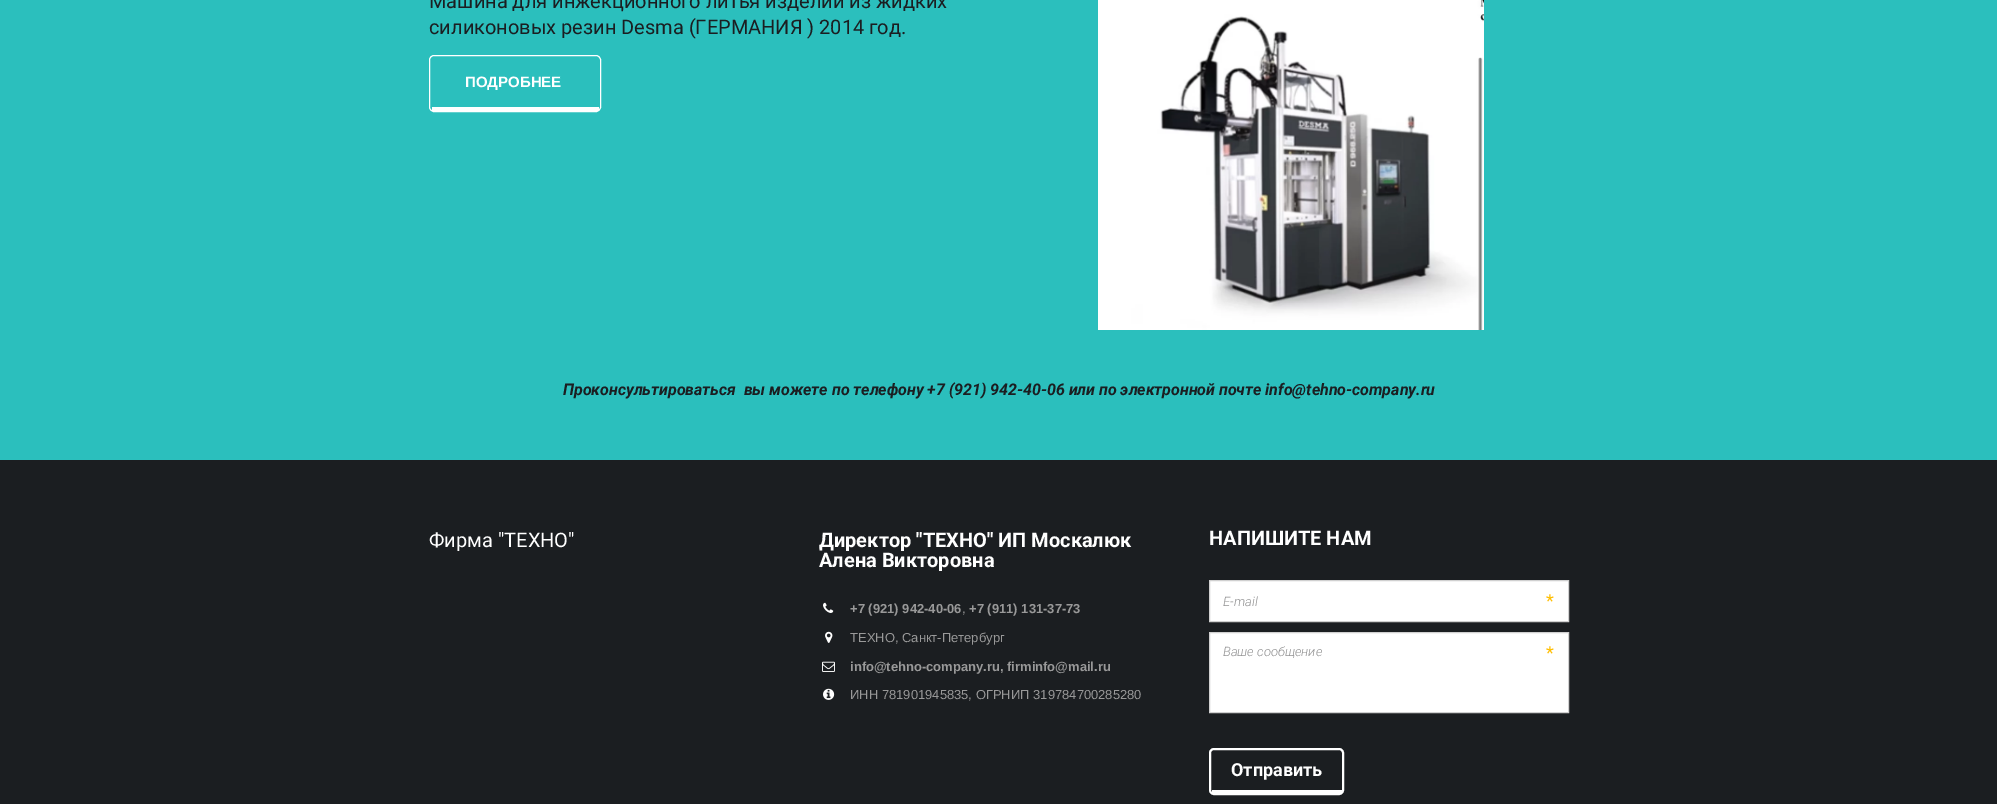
%!PS
<< /PageSize [1997 804] >> setpagedevice
/mt/moveto load def
/li/lineto load def
/cp/closepath load def
/fl/fill load def
/st/stroke load def
/gs/gsave load def
/gr/grestore load def
/lw/setlinewidth load def
/co { dup -16 bitshift 255 div exch dup -8 bitshift 255 and 255 div exch 255 and 255 div setrgbcolor } def
/fn { [ exch dup neg 0 0 3 -1 roll 0 0 ] selectfont } def
/tx { co fn moveto show } def
/bx { co rectfill } def
/rr { 5 dict begin { /r /h /w /y /x } { exch def } forall
  x r add y moveto x w add y 2 copy h add r arct x w add y h add x 1 index r arct
  x y h add x y r arct x y 2 copy exch w add exch r arct closepath end } def
/im { 5 dict begin { /h /w /y /x /name } { exch def } forall
  gsave x y translate w h scale
  w h 8 [w 0 0 h 0 0] name (r) file false 3 colorimage grestore end } def
0 804 translate 1 -1 scale
4 setmiterlimit
0 0 1997 804 16#2BBFBD bx
16#FFFFFF co
429.5 55.5 171 56 4.5 rr st
432 107 167 4 16#FFFFFF bx
(media/1.raw) 1098 0 386 330 im
0 460 1997 344 16#1B1E21 bx
(media/2.raw) 823 602 11 11 im
(media/3.raw) 825 631 8 12 im
(media/4.raw) 822 661 13 11 im
(media/5.raw) 823 688 12 12 im
16#FFFFFF co
1209.5 580.5 mt 1568.5 580.5 li 1568.5 621.5 li 1209.5 621.5 li cp gs fl gr
16#D0D0D0 co
st
16#FFFFFF co
1209.5 632.5 mt 1568.5 632.5 li 1568.5 712.5 li 1209.5 712.5 li cp gs fl gr
16#D0D0D0 co
st
16#FFFFFF co
2 lw
1210 749 133 45 4 rr st
1212 790 130 3 16#FFFFFF bx
(Машина для инжекционного литья изделий из жидких) 429 8 /Roboto-Regular 20 16#1B1E21 tx
(силиконовых резин Desma \(ГЕРМАНИЯ \) 2014 год.) 429 34 /Roboto-Regular 20 16#1B1E21 tx
(ПОДРОБНЕЕ) 465 87 /LiberationSans-Bold 15 16#FFFFFF tx
(Проконсультироваться  вы можете по телефону +7 \(921\) 942-40-06 или по электронной почте info@tehno-company.ru) 563 395 /Roboto-BoldItalic 16 16#1B1E21 tx
(Фирма "ТЕХНО") 429 547 /Roboto-Regular 20 16#FFFFFF tx
(Директор "ТЕХНО" ИП Москалюк) 819 547 /Roboto-Bold 20 16#FFFFFF tx
(Алена Викторовна) 819 567 /Roboto-Bold 20 16#FFFFFF tx
(+7 \(921\) 942-40-06) 850 613 /LiberationSans-Bold 13 16#999999 tx
(,) 962 613 /LiberationSans-Regular 13 16#999999 tx
(+7 \(911\) 131-37-73) 969 613 /LiberationSans-Bold 13 16#999999 tx
(ТЕХНО, Санкт-Петербург) 850 642 /LiberationSans-Regular 13 16#999999 tx
(info@tehno-company.ru, firminfo@mail.ru) 850 671 /LiberationSans-Bold 13 16#999999 tx
(ИНН 781901945835, ОГРНИП 319784700285280) 850 699 /LiberationSans-Regular 13 16#999999 tx
(НАПИШИТЕ НАМ) 1209 545 /Roboto-Bold 20 16#FFFFFF tx
(E-mail) 1223 606 /Roboto-LightItalic 13 16#919192 tx
(*) 1546 607 /Roboto-Regular 18 16#FFBE00 tx
(Ваше сообщение) 1223 656 /Roboto-LightItalic 13 16#919192 tx
(*) 1546 659 /Roboto-Regular 18 16#FFBE00 tx
(Отправить) 1231 776 /Roboto-Bold 18 16#FFFFFF tx
showpage
